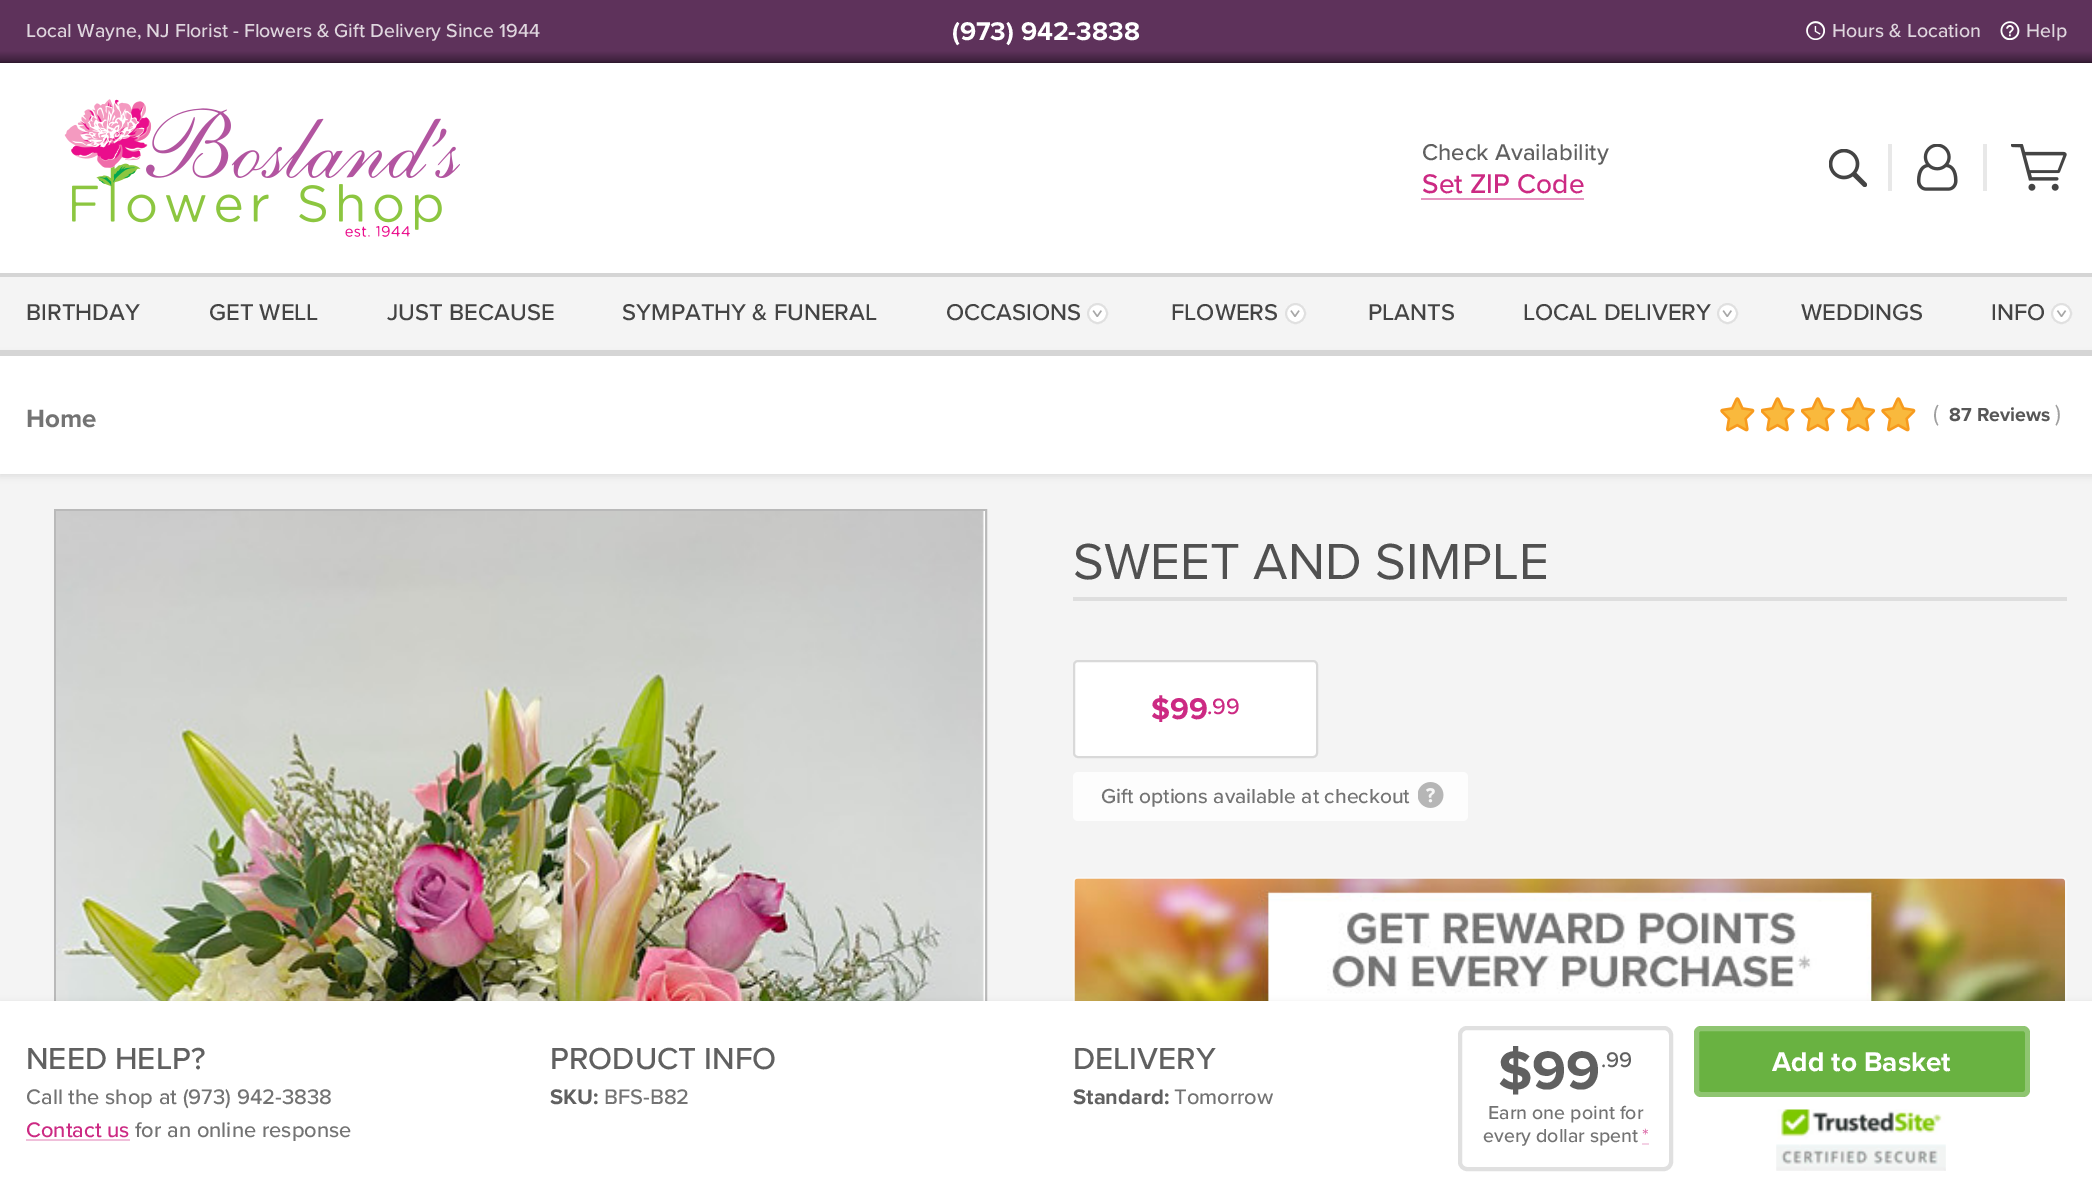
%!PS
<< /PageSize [2092 1194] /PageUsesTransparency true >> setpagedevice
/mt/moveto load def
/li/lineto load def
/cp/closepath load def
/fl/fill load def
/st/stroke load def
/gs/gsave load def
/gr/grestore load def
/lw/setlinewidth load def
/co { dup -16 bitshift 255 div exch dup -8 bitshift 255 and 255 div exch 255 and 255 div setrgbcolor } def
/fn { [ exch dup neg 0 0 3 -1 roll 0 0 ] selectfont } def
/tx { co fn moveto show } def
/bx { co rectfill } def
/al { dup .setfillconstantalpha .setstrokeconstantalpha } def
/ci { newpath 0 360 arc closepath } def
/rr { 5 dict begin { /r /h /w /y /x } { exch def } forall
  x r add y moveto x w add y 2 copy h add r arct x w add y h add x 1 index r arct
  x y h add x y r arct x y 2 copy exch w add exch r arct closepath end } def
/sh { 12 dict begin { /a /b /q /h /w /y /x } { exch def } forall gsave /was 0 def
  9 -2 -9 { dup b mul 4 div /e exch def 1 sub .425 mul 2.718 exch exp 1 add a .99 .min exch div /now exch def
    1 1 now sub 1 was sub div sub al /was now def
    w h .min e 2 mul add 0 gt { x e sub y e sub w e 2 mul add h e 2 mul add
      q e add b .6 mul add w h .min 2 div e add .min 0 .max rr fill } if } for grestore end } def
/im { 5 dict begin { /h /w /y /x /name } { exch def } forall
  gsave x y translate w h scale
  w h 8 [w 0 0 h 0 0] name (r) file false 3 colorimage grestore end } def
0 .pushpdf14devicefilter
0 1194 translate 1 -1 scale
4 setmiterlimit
0 0 2092 1194 16#F4F4F4 bx
0 63 2092 210 16#FFFFFF bx
0 0 2092 51 16#5E325B bx
(media/1.raw) 1806 21 19 19 im
(media/2.raw) 2000 21 20 19 im
gs 0 51 mt 2092 51 li 2092 63 li 0 63 li cp clip newpath
<< /ShadingType 2 /ColorSpace /DeviceRGB /Coords [1047 51 1047 63] /Extend [true true] /Function << /FunctionType 3 /Domain [0 1] /Functions [<< /FunctionType 2 /Domain [0 1] /C0 [.369 .196 .357] /C1 [.294 .157 .286] /N 1 >> << /FunctionType 2 /Domain [0 1] /C0 [.294 .157 .286] /C1 [.259 .137 .251] /N 1 >> << /FunctionType 2 /Domain [0 1] /C0 [.259 .137 .251] /C1 [.184 .098 .18] /N 1 >>] /Bounds [.5 .75] /Encode [0 1 0 1 0 1] >> >> shfill gr
(media/3.raw) 64 99 396 138 im
1421 198 163 2 16#E695C1 bx
(media/4.raw) 1829 149 38 38 im
1888 144 4 47 16#E8E8E8 bx
(media/5.raw) 1916 144 42 47 im
1983 144 4 47 16#E8E8E8 bx
(media/6.raw) 2011 144 56 47 im
0 273 2092 4 16#D5D5D5 bx
16#FFFFFF co
1097.5 313.5 10.5 ci fl
(media/7.raw) 1092 310 10 7 im
0.75 al
16#D5D5D5 co
2 lw
1097.5 313.5 9.5 ci st
1 al
16#FFFFFF co
1295.5 313.5 10.5 ci fl
(media/8.raw) 1290 310 10 7 im
0.75 al
16#D5D5D5 co
1295.5 313.5 9.5 ci st
1 al
16#FFFFFF co
1727.5 313.5 10.5 ci fl
(media/7.raw) 1722 310 10 7 im
0.75 al
16#D5D5D5 co
1727.5 313.5 9.5 ci st
1 al
16#FFFFFF co
2061.5 313.5 10.5 ci fl
(media/9.raw) 2056 310 11 7 im
0.75 al
16#D5D5D5 co
2061.5 313.5 9.5 ci st
1 al
16#0D0D0D co
0 355 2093 121 0 3.5 .1 sh
0 356 2092 118 16#FFFFFF bx
0 350 2092 6 16#D5D5D5 bx
(media/10.raw) 1720 397 35 35 im
(media/11.raw) 1761 397 34 35 im
(media/12.raw) 1801 397 34 35 im
(media/13.raw) 1841 397 35 35 im
(media/10.raw) 1881 397 35 35 im
16#B9B9B9 co
55 510 931 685 rectstroke
(media/14.raw) 56 511 930 490 im
1073 597 994 4 16#DEDEDE bx
16#FFFFFF co
1074 661 243 96 4 rr gs fl gr
16#D9D9D9 co
st
16#FDFDFD co
1073 772 395 49 5 rr fl
(media/15.raw) 1418 782 26 26 im
16#F8F8F8 co
1074 878 992 196 4 rr st
(media/16.raw) 1074 878 991 123 im
16#0D0D0D co
0 1003 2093 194 0 3.5 .1 sh
0 1001 2092 193 16#FFFFFF bx
26 1139 104 2 16#F0BFDA bx
16#E0E0E0 co
4 lw
1460 1028 211 141 7 rr st
1642 1143 7 2 16#F4D2E5 bx
16#69B241 co
1694 1026 336 71 7 rr fl
0.25 al
16#FFFFFF co
5 lw
1696.5 1028.5 331 66 4.5 rr st
1 al
(media/17.raw) 1776 1109 170 62 im
(Local Wayne, NJ Florist - Flowers & Gift Delivery Since 1944) 26 37 /ProximaNova-Medium 19.6 16#DFD6DE tx
(\(973\) 942-3838) 952 40 /ProximaNova-Bold 26.5 16#FFFFFF tx
(Hours & Location) 1832 37 /ProximaNova-Medium 19.6 16#DFD6DE tx
(Help) 2026 37 /ProximaNova-Medium 19.6 16#DFD6DE tx
(Check Availability) 1422 160 /ProximaNova-Medium 23.75 16#606060 tx
(Set ZIP Code) 1422 193 /ProximaNova-Medium 28 16#CC2A83 tx
(BIRTHDAY) 26 320 /ProximaNova-Medium 23.75 16#444444 tx
(GET WELL) 209 320 /ProximaNova-Medium 23.75 16#444444 tx
(JUST BECAUSE) 387 320 /ProximaNova-Medium 23.75 16#444444 tx
(SYMPATHY & FUNERAL) 622 320 /ProximaNova-Medium 23.75 16#444444 tx
(OCCASIONS) 946 320 /ProximaNova-Medium 23.75 16#444444 tx
(FLOWERS) 1171 320 /ProximaNova-Medium 23.75 16#444444 tx
(PLANTS) 1368 320 /ProximaNova-Medium 23.75 16#444444 tx
(LOCAL DELIVERY) 1523 320 /ProximaNova-Medium 23.75 16#444444 tx
(WEDDINGS) 1801 320 /ProximaNova-Medium 23.75 16#444444 tx
(INFO) 1991 320 /ProximaNova-Medium 23.75 16#444444 tx
(Home) 26 427 /ProximaNova-Bold 26 16#737373 tx
(\() 1933 421 /ProximaNova-Regular 24 16#A0A0A0 tx
(87 Reviews) 1949 421 /ProximaNova-Bold 19.6 16#575757 tx
(\)) 2055 421 /ProximaNova-Regular 24 16#A0A0A0 tx
(SWEET AND SIMPLE) 1073 579 /ProximaNova-Regular 52.5 16#505050 tx
($99) 1151 719 /ProximaNova-Bold 31 16#CC2A83 tx
(.99) 1207 714 /ProximaNova-Medium 23 16#CC2A83 tx
(Gift options available at checkout) 1101 803 /ProximaNova-Medium 21 16#737373 tx
(NEED HELP?) 26 1069 /ProximaNova-Medium 31.5 16#606060 tx
(Call the shop at \(973\) 942-3838) 26 1104 /ProximaNova-Medium 21.9 16#737373 tx
(Contact us) 26 1137 /ProximaNova-Medium 21.9 16#CC2A83 tx
(for an online response) 135 1137 /ProximaNova-Medium 21.9 16#737373 tx
(PRODUCT INFO) 550 1069 /ProximaNova-Medium 31.5 16#606060 tx
(SKU:) 550 1104 /ProximaNova-Bold 21.9 16#606060 tx
(BFS-B82) 604 1104 /ProximaNova-Medium 21.9 16#737373 tx
(DELIVERY) 1073 1069 /ProximaNova-Medium 31.5 16#606060 tx
(Standard:) 1073 1104 /ProximaNova-Bold 21.9 16#606060 tx
(Tomorrow) 1174 1104 /ProximaNova-Medium 21.9 16#737373 tx
($99) 1498 1089 /ProximaNova-Bold 56 16#606060 tx
(.99) 1601 1067 /ProximaNova-Medium 22 16#606060 tx
(Earn one point for) 1488 1119 /ProximaNova-Medium 19.6 16#737373 tx
(every dollar spent) 1483 1142 /ProximaNova-Medium 19.6 16#737373 tx
(*) 1642 1142 /ProximaNova-Medium 19.6 16#DB6AA8 tx
(Add to Basket) 1772 1071 /ProximaNova-Bold 28 16#FFFFFF tx
.poppdf14devicefilter showpage
